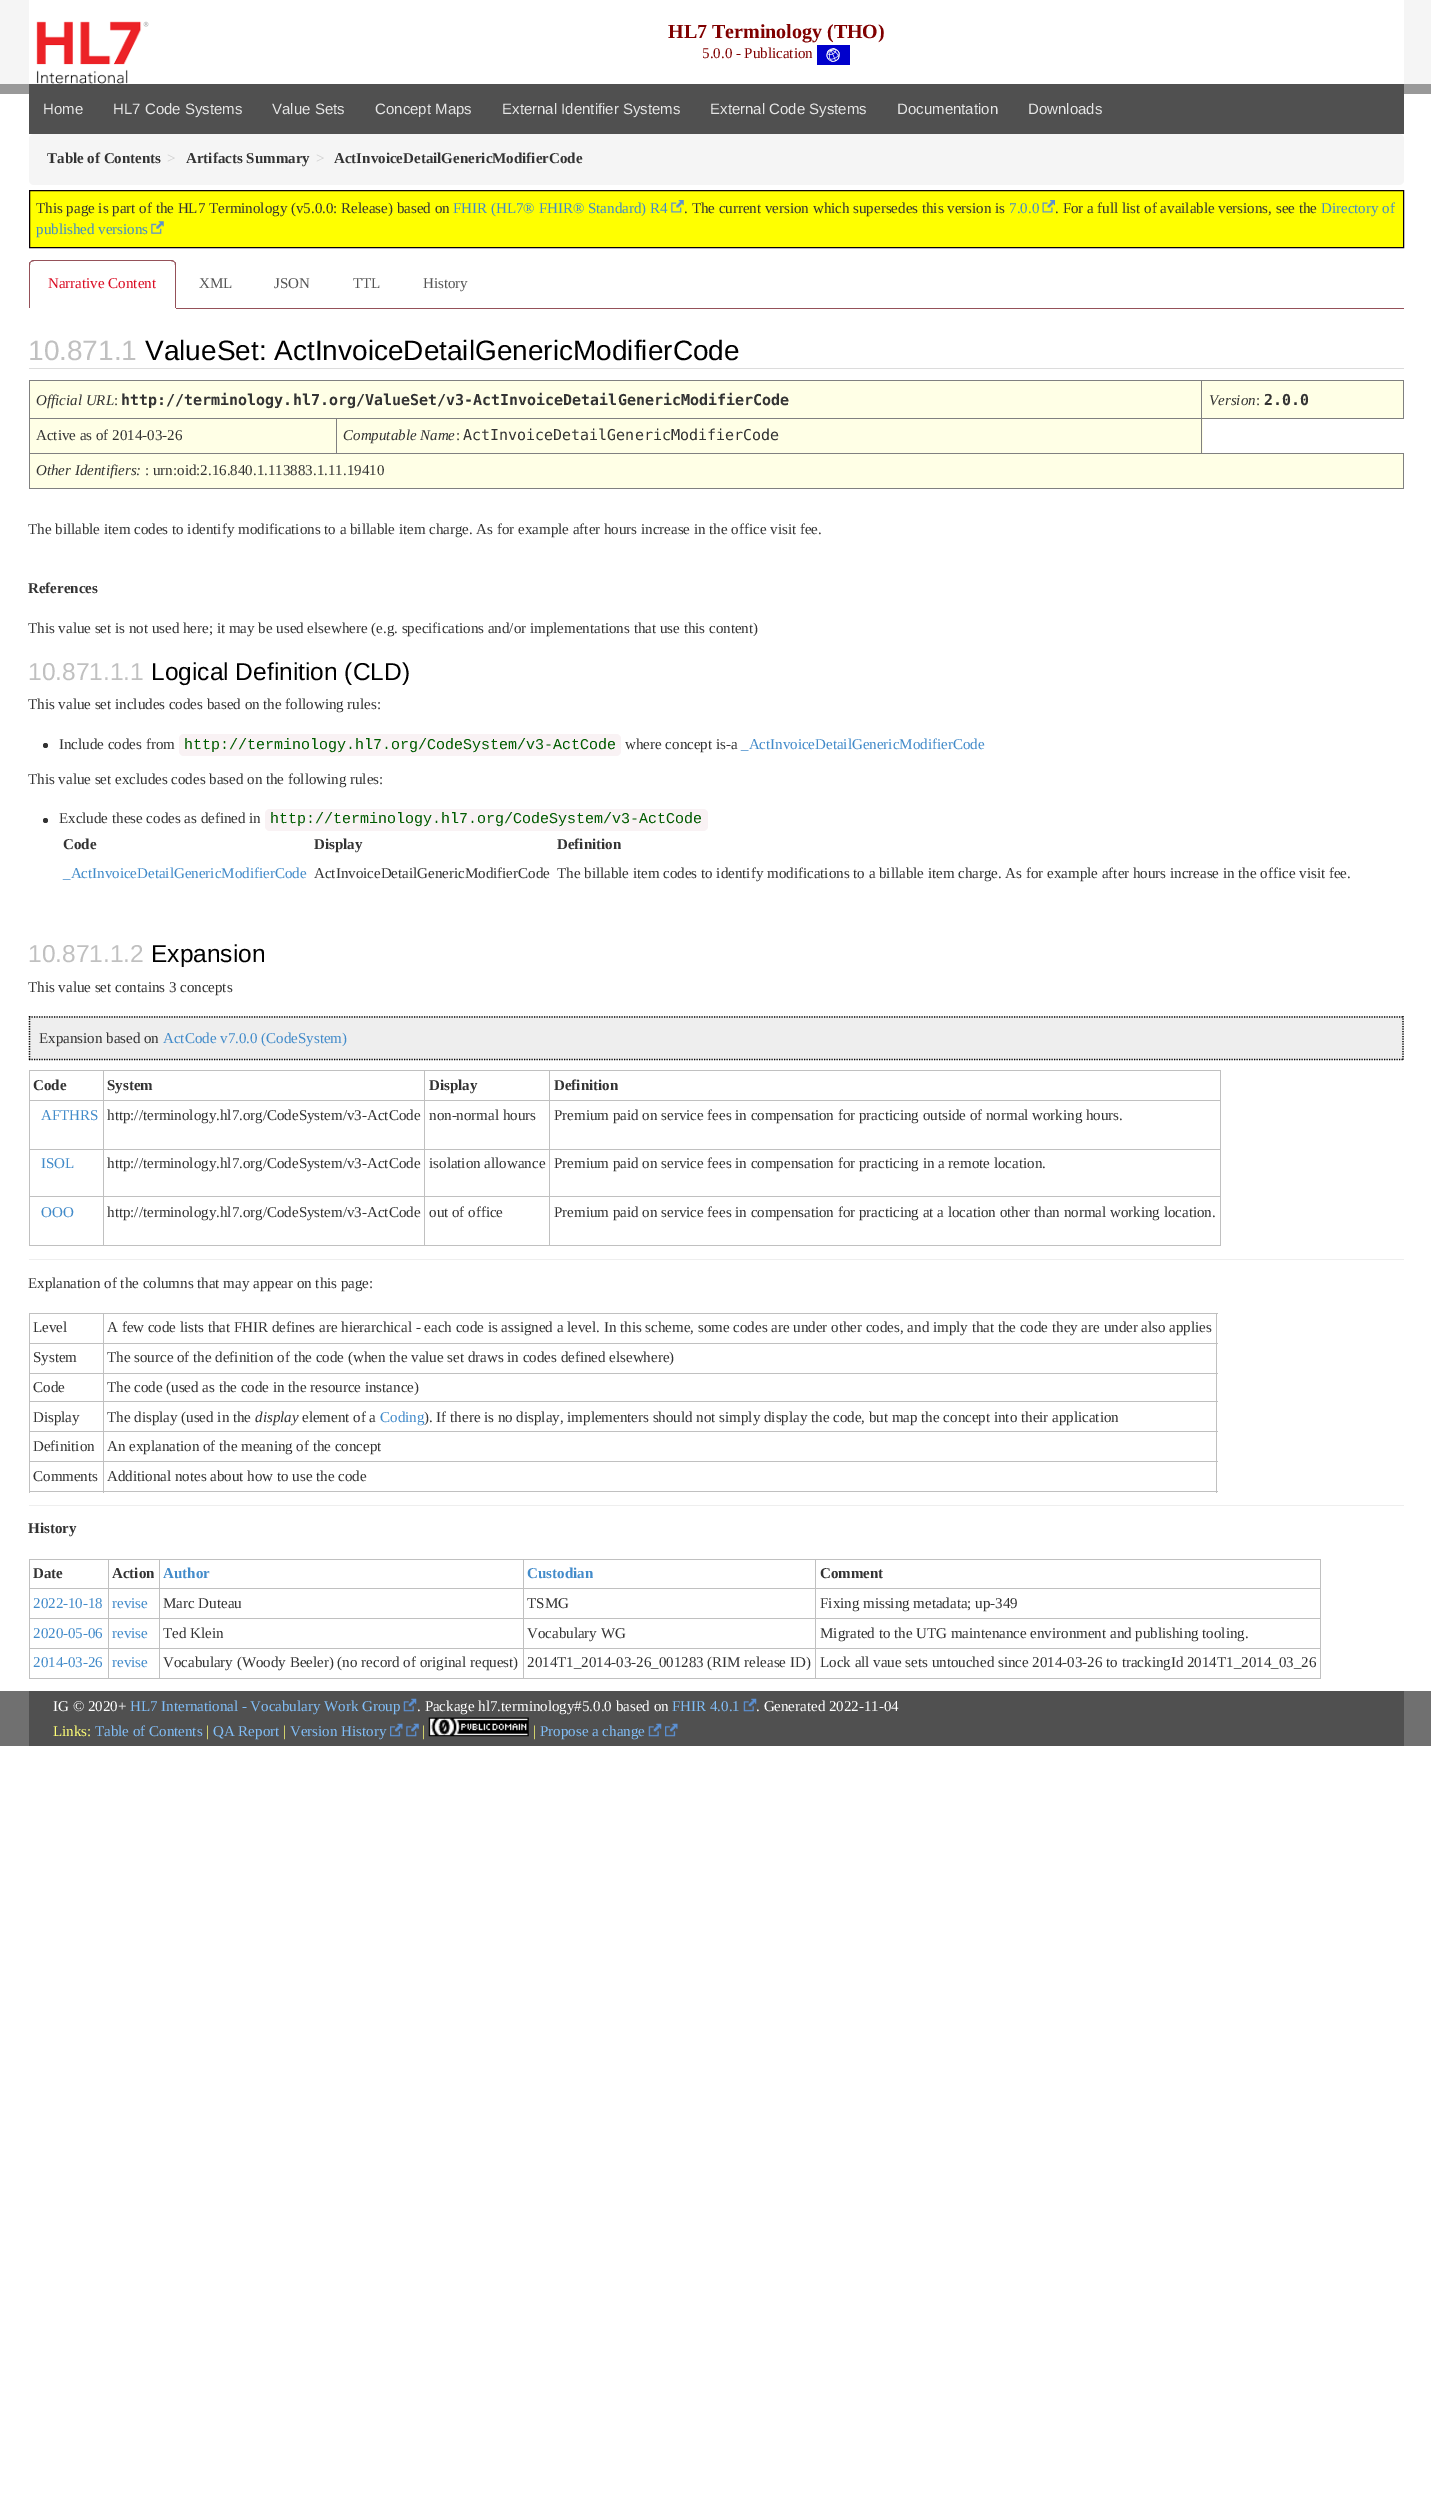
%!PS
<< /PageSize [1431 2520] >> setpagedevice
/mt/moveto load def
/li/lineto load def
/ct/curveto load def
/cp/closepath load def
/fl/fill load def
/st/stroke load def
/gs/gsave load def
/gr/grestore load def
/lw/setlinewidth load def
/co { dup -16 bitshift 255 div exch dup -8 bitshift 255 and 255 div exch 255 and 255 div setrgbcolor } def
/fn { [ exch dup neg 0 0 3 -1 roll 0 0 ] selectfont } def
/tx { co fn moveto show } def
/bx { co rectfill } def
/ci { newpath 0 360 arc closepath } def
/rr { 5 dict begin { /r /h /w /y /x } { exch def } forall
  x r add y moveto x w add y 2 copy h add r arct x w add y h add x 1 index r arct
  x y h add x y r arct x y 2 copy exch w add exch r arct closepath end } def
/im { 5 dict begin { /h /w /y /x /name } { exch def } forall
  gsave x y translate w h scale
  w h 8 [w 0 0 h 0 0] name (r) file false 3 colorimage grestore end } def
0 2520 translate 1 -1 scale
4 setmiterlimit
0 0 1431 2520 16#FFFFFF bx
0 0 1431 84 16#F5F5F5 bx
29 0 1375 84 16#FFFFFF bx
(media/1.raw) 36 21 113 63 im
(media/2.raw) 817 45 33 20 im
0 84 1431 10 16#999999 bx
29 84 1375 50 16#505050 bx
16#F5F5F5 co
29 134 1375 51 5 rr fl
16#FFFF00 co
29.5 190.5 mt 1403.5 190.5 li 1403.5 247.5 li 29.5 247.5 li cp gs fl gr
16#0A0008 co
st
(media/3.raw) 151 221 13 13 im
(media/4.raw) 671 200 13 13 im
(media/5.raw) 1042 200 13 13 im
176 308 1228 1 16#955159 bx
34 260 mt 32 260 31 261 30 262 ct 31 262 li 34 261 li 171 261 li 174 262 li 175 262 li 174 261 173 260 171 260 ct cp fl
175 262 mt 176 262 176 264 176 265 ct 176 308 li 175 308 li 175 265 li 175 264 175 263 174 262 ct cp fl
30 262 mt 29 262 29 264 29 265 ct 29 308 li 30 308 li 30 265 li 30 264 30 263 31 262 ct cp fl
29 368 1375 1 16#DCDCDC bx
30 381 1373 37 16#FFFFE6 bx
1201 380 203 1 16#808080 bx
1403 380 1 39 16#808080 bx
336 418 867 1 16#808080 bx
337 419 866 34 16#FFFFE6 bx
29 453 1375 1 16#808080 bx
1201 418 1 36 16#808080 bx
1201 418 203 1 16#808080 bx
1201 380 1 39 16#808080 bx
29 380 1174 1 16#808080 bx
336 418 1 36 16#808080 bx
29 418 309 1 16#808080 bx
1403 453 1 36 16#808080 bx
29 488 1375 1 16#808080 bx
29 453 1 36 16#808080 bx
29 418 1 36 16#808080 bx
29 380 1 39 16#808080 bx
30 419 306 34 16#FFFFE6 bx
30 454 1373 34 16#FFFFE6 bx
16#333333 co
45.5 745.5 2.5 ci fl
16#F9F2F4 co
179 734 442 22 5 rr fl
16#333333 co
45.5 820.5 2.5 ci fl
16#F9F2F4 co
265 809 443 22 5 rr fl
29 1016 1375 44 16#EEEEEE bx
16#000000 co
1.2 lw
[1.25 1.25] 0 setdash
29 1017 mt 1404 1017 li st
1403 1016 mt 1403 1060 li st
29 1059.5 mt 1404 1059.5 li st
29.5 1016 mt 29.5 1060 li st
549 1070 672 1 16#C0C0C0 bx
549 1100 672 1 16#C0C0C0 bx
549 1149 672 1 16#C0C0C0 bx
549 1196 672 1 16#C0C0C0 bx
1220 1196 1 50 16#C0C0C0 bx
549 1245 672 1 16#C0C0C0 bx
549 1196 1 50 16#C0C0C0 bx
424 1196 126 1 16#C0C0C0 bx
549 1149 1 49 16#C0C0C0 bx
424 1149 126 1 16#C0C0C0 bx
549 1100 1 50 16#C0C0C0 bx
424 1100 126 1 16#C0C0C0 bx
549 1070 1 31 16#C0C0C0 bx
424 1070 126 1 16#C0C0C0 bx
424 1245 126 1 16#C0C0C0 bx
424 1196 1 50 16#C0C0C0 bx
103 1196 322 1 16#C0C0C0 bx
424 1149 1 49 16#C0C0C0 bx
103 1149 322 1 16#C0C0C0 bx
424 1100 1 50 16#C0C0C0 bx
103 1100 322 1 16#C0C0C0 bx
424 1070 1 31 16#C0C0C0 bx
103 1070 322 1 16#C0C0C0 bx
103 1245 322 1 16#C0C0C0 bx
103 1196 1 50 16#C0C0C0 bx
29 1196 75 1 16#C0C0C0 bx
103 1149 1 49 16#C0C0C0 bx
29 1149 75 1 16#C0C0C0 bx
103 1100 1 50 16#C0C0C0 bx
29 1100 75 1 16#C0C0C0 bx
103 1070 1 31 16#C0C0C0 bx
29 1070 75 1 16#C0C0C0 bx
29 1245 75 1 16#C0C0C0 bx
29 1196 1 50 16#C0C0C0 bx
29 1149 1 49 16#C0C0C0 bx
29 1100 1 50 16#C0C0C0 bx
29 1070 1 31 16#C0C0C0 bx
1220 1149 1 49 16#C0C0C0 bx
1220 1100 1 50 16#C0C0C0 bx
1220 1070 1 31 16#C0C0C0 bx
29 1259 1375 1 16#EEEEEE bx
103 1313 1115 1 16#C0C0C0 bx
103 1343 1115 1 16#C0C0C0 bx
103 1373 1115 1 16#C0C0C0 bx
103 1401 1115 1 16#C0C0C0 bx
103 1431 1115 1 16#C0C0C0 bx
103 1461 1115 1 16#C0C0C0 bx
1216 1461 1 32 16#C0C0C0 bx
103 1491 1115 1 16#C0C0C0 bx
103 1461 1 32 16#C0C0C0 bx
29 1461 75 1 16#C0C0C0 bx
103 1431 1 32 16#C0C0C0 bx
29 1431 75 1 16#C0C0C0 bx
103 1401 1 32 16#C0C0C0 bx
29 1401 75 1 16#C0C0C0 bx
103 1373 1 30 16#C0C0C0 bx
29 1373 75 1 16#C0C0C0 bx
103 1343 1 31 16#C0C0C0 bx
29 1343 75 1 16#C0C0C0 bx
103 1313 1 31 16#C0C0C0 bx
29 1313 75 1 16#C0C0C0 bx
29 1491 75 1 16#C0C0C0 bx
29 1461 1 32 16#C0C0C0 bx
29 1431 1 32 16#C0C0C0 bx
29 1401 1 32 16#C0C0C0 bx
29 1373 1 30 16#C0C0C0 bx
29 1343 1 31 16#C0C0C0 bx
29 1313 1 31 16#C0C0C0 bx
1216 1431 1 32 16#C0C0C0 bx
1216 1401 1 32 16#C0C0C0 bx
1216 1373 1 30 16#C0C0C0 bx
1216 1343 1 31 16#C0C0C0 bx
1216 1313 1 31 16#C0C0C0 bx
29 1505 1375 1 16#EEEEEE bx
815 1559 506 1 16#C0C0C0 bx
815 1588 506 1 16#C0C0C0 bx
815 1618 506 1 16#C0C0C0 bx
815 1648 506 1 16#C0C0C0 bx
1320 1648 1 31 16#C0C0C0 bx
815 1678 506 1 16#C0C0C0 bx
815 1648 1 31 16#C0C0C0 bx
523 1648 293 1 16#C0C0C0 bx
815 1618 1 31 16#C0C0C0 bx
523 1618 293 1 16#C0C0C0 bx
815 1588 1 31 16#C0C0C0 bx
523 1588 293 1 16#C0C0C0 bx
815 1559 1 30 16#C0C0C0 bx
523 1559 293 1 16#C0C0C0 bx
523 1678 293 1 16#C0C0C0 bx
523 1648 1 31 16#C0C0C0 bx
159 1648 365 1 16#C0C0C0 bx
523 1618 1 31 16#C0C0C0 bx
159 1618 365 1 16#C0C0C0 bx
523 1588 1 31 16#C0C0C0 bx
159 1588 365 1 16#C0C0C0 bx
523 1559 1 30 16#C0C0C0 bx
159 1559 365 1 16#C0C0C0 bx
159 1678 365 1 16#C0C0C0 bx
159 1648 1 31 16#C0C0C0 bx
108 1648 52 1 16#C0C0C0 bx
159 1618 1 31 16#C0C0C0 bx
108 1618 52 1 16#C0C0C0 bx
159 1588 1 31 16#C0C0C0 bx
108 1588 52 1 16#C0C0C0 bx
159 1559 1 30 16#C0C0C0 bx
108 1559 52 1 16#C0C0C0 bx
108 1678 52 1 16#C0C0C0 bx
108 1648 1 31 16#C0C0C0 bx
29 1648 80 1 16#C0C0C0 bx
108 1618 1 31 16#C0C0C0 bx
29 1618 80 1 16#C0C0C0 bx
108 1588 1 31 16#C0C0C0 bx
29 1588 80 1 16#C0C0C0 bx
108 1559 1 30 16#C0C0C0 bx
29 1559 80 1 16#C0C0C0 bx
29 1678 80 1 16#C0C0C0 bx
29 1648 1 31 16#C0C0C0 bx
29 1618 1 31 16#C0C0C0 bx
29 1588 1 31 16#C0C0C0 bx
29 1559 1 30 16#C0C0C0 bx
1320 1618 1 31 16#C0C0C0 bx
1320 1588 1 31 16#C0C0C0 bx
1320 1559 1 30 16#C0C0C0 bx
0 1691 1431 55 16#707070 bx
29 1691 1375 55 16#505050 bx
(media/6.raw) 403 1698 14 14 im
(media/6.raw) 743 1698 14 14 im
(media/7.raw) 390 1723 13 14 im
(media/8.raw) 406 1723 13 14 im
(media/9.raw) 428 1717 101 20 im
(media/10.raw) 648 1723 14 14 im
(media/7.raw) 665 1723 13 14 im
(HL7 Terminology \(THO\)) 668 38 /LiberationSerif-Bold 20 16#800000 tx
(5.0.0 - Publication) 702 58 /LiberationSerif-Regular 15 16#800000 tx
(Home) 43 114 /LiberationSans-Regular 15 16#E6E6E6 tx
(HL7 Code Systems) 113 114 /LiberationSans-Regular 15 16#E6E6E6 tx
(Value Sets) 272 114 /LiberationSans-Regular 15 16#E6E6E6 tx
(Concept Maps) 375 114 /LiberationSans-Regular 15 16#E6E6E6 tx
(External Identifier Systems) 502 114 /LiberationSans-Regular 15 16#E6E6E6 tx
(External Code Systems) 710 114 /LiberationSans-Regular 15 16#E6E6E6 tx
(Documentation) 897 114 /LiberationSans-Regular 15 16#E6E6E6 tx
(Downloads) 1028 114 /LiberationSans-Regular 15 16#E6E6E6 tx
(Table of Contents) 47 163 /LiberationSerif-Bold 15 16#333333 tx
(>) 167 163 /LiberationSerif-Regular 15 16#CCCCCC tx
(Artifacts Summary) 186 163 /LiberationSerif-Bold 15 16#333333 tx
(>) 316 163 /LiberationSerif-Regular 15 16#CCCCCC tx
(ActInvoiceDetailGenericModifierCode) 334 163 /LiberationSerif-Bold 15 16#333333 tx
(This page is part of the HL7 Terminology \(v5.0.0: Release\) based on) 36 213 /LiberationSerif-Regular 15 16#333333 tx
(Directory of) 1321 213 /LiberationSerif-Regular 15 16#428BCA tx
(published versions) 36 234 /LiberationSerif-Regular 15 16#428BCA tx
(FHIR \(HL7® FHIR® Standard\) R4) 453 213 /LiberationSerif-Regular 15 16#428BCA tx
(. The current version which supersedes this version is) 684 213 /LiberationSerif-Regular 15 16#333333 tx
(7.0.0) 1009 213 /LiberationSerif-Regular 15 16#428BCA tx
(. For a full list of available versions, see the) 1055 213 /LiberationSerif-Regular 15 16#333333 tx
(Narrative Content) 48 288 /LiberationSerif-Regular 15 16#DA0C23 tx
(XML) 199 288 /LiberationSerif-Regular 15 16#555555 tx
(JSON) 274 288 /LiberationSerif-Regular 15 16#555555 tx
(TTL) 353 288 /LiberationSerif-Regular 15 16#555555 tx
(History) 423 288 /LiberationSerif-Regular 15 16#555555 tx
(10.871.1) 28 360 /LiberationSans-Regular 28 16#C0C0C0 tx
(ValueSet: ActInvoiceDetailGenericModifierCode) 145 360 /LiberationSans-Regular 28 16#000000 tx
(Official URL) 36 405 /LiberationSerif-Italic 15 16#333333 tx
(:) 114 405 /LiberationSerif-Regular 15 16#333333 tx
(http://terminology.hl7.org/ValueSet/v3-ActInvoiceDetailGenericModifierCode) 121 405 /DejaVuSansMono-Bold 15 16#333333 tx
(Version) 1209 405 /LiberationSerif-Italic 15 16#333333 tx
(:) 1256 405 /LiberationSerif-Regular 15 16#333333 tx
(2.0.0) 1264 405 /DejaVuSansMono-Bold 15 16#333333 tx
(Active as of 2014-03-26) 36 440 /LiberationSerif-Regular 15 16#333333 tx
(Computable Name) 343 440 /LiberationSerif-Italic 15 16#333333 tx
(:) 456 440 /LiberationSerif-Regular 15 16#333333 tx
(ActInvoiceDetailGenericModifierCode) 463 440 /DejaVuSansMono-Regular 15 16#333333 tx
(Other Identifiers:) 36 475 /LiberationSerif-Italic 15 16#333333 tx
(: urn:oid:2.16.840.1.113883.1.11.19410) 145 475 /LiberationSerif-Regular 15 16#333333 tx
(The billable item codes to identify modifications to a billable item charge. As for example after hours increase in the office visit fee.) 28 534 /LiberationSerif-Regular 15 16#333333 tx
(References) 28 593 /LiberationSerif-Bold 15 16#333333 tx
(This value set is not used here; it may be used elsewhere \(e.g. specifications and/or implementations that use this content\)) 28 633 /LiberationSerif-Regular 15 16#333333 tx
(10.871.1.1) 28 680 /LiberationSans-Regular 24.5 16#C0C0C0 tx
(Logical Definition \(CLD\)) 151 680 /LiberationSans-Regular 24.5 16#000000 tx
(This value set includes codes based on the following rules:) 28 709 /LiberationSerif-Regular 15 16#333333 tx
(Include codes from) 59 749 /LiberationSerif-Regular 15 16#333333 tx
(http://terminology.hl7.org/CodeSystem/v3-ActCode) 184 749 /LiberationMono-Regular 15 16#005C00 tx
(where concept is-a) 625 749 /LiberationSerif-Regular 15 16#333333 tx
(_ActInvoiceDetailGenericModifierCode) 741 749 /LiberationSerif-Regular 15 16#428BCA tx
(This value set excludes codes based on the following rules:) 28 784 /LiberationSerif-Regular 15 16#333333 tx
(Exclude these codes as defined in) 59 823 /LiberationSerif-Regular 15 16#333333 tx
(http://terminology.hl7.org/CodeSystem/v3-ActCode) 270 823 /LiberationMono-Regular 15 16#005C00 tx
(Code) 63 849 /LiberationSerif-Bold 15 16#333333 tx
(Display) 314 849 /LiberationSerif-Bold 15 16#333333 tx
(Definition) 557 849 /LiberationSerif-Bold 15 16#333333 tx
(_ActInvoiceDetailGenericModifierCode) 63 878 /LiberationSerif-Regular 15 16#428BCA tx
(ActInvoiceDetailGenericModifierCode) 314 878 /LiberationSerif-Regular 15 16#333333 tx
(The billable item codes to identify modifications to a billable item charge. As for example after hours increase in the office visit fee.) 557 878 /LiberationSerif-Regular 15 16#333333 tx
(10.871.1.2) 28 962 /LiberationSans-Regular 24.5 16#C0C0C0 tx
(Expansion) 151 962 /LiberationSans-Regular 24.5 16#000000 tx
(This value set contains 3 concepts) 28 992 /LiberationSerif-Regular 15 16#333333 tx
(Expansion based on) 39 1043 /LiberationSerif-Regular 15 16#333333 tx
(ActCode v7.0.0 \(CodeSystem\)) 163 1043 /LiberationSerif-Regular 15 16#428BCA tx
(Code) 33 1090 /LiberationSerif-Bold 15 16#333333 tx
(System) 107 1090 /LiberationSerif-Bold 15 16#333333 tx
(Display) 429 1090 /LiberationSerif-Bold 15 16#333333 tx
(Definition) 554 1090 /LiberationSerif-Bold 15 16#333333 tx
(AFTHRS) 41 1120 /LiberationSerif-Regular 15 16#428BCA tx
(http://terminology.hl7.org/CodeSystem/v3-ActCode) 107 1120 /LiberationSerif-Regular 15 16#333333 tx
(non-normal hours) 429 1120 /LiberationSerif-Regular 15 16#333333 tx
(Premium paid on service fees in compensation for practicing outside of normal working hours.) 554 1120 /LiberationSerif-Regular 15 16#333333 tx
(ISOL) 41 1168 /LiberationSerif-Regular 15 16#428BCA tx
(http://terminology.hl7.org/CodeSystem/v3-ActCode) 107 1168 /LiberationSerif-Regular 15 16#333333 tx
(isolation allowance) 429 1168 /LiberationSerif-Regular 15 16#333333 tx
(Premium paid on service fees in compensation for practicing in a remote location.) 554 1168 /LiberationSerif-Regular 15 16#333333 tx
(OOO) 41 1217 /LiberationSerif-Regular 15 16#428BCA tx
(http://terminology.hl7.org/CodeSystem/v3-ActCode) 107 1217 /LiberationSerif-Regular 15 16#333333 tx
(out of office) 429 1217 /LiberationSerif-Regular 15 16#333333 tx
(Premium paid on service fees in compensation for practicing at a location other than normal working location.) 554 1217 /LiberationSerif-Regular 15 16#333333 tx
(Explanation of the columns that may appear on this page:) 28 1288 /LiberationSerif-Regular 15 16#333333 tx
(Level) 33 1332 /LiberationSerif-Regular 15 16#333333 tx
(A few code lists that FHIR defines are hierarchical - each code is assigned a level. In this scheme, some codes are under other codes, and imply that the code they are under also applies) 107 1332 /LiberationSerif-Regular 15 16#333333 tx
(System) 33 1362 /LiberationSerif-Regular 15 16#333333 tx
(The source of the definition of the code \(when the value set draws in codes defined elsewhere\)) 107 1362 /LiberationSerif-Regular 15 16#333333 tx
(Code) 33 1392 /LiberationSerif-Regular 15 16#333333 tx
(The code \(used as the code in the resource instance\)) 107 1392 /LiberationSerif-Regular 15 16#333333 tx
(Display) 33 1422 /LiberationSerif-Regular 15 16#333333 tx
(The display \(used in the) 107 1422 /LiberationSerif-Regular 15 16#333333 tx
(display) 255 1422 /LiberationSerif-Italic 15 16#333333 tx
(element of a) 302 1422 /LiberationSerif-Regular 15 16#333333 tx
(Coding) 380 1422 /LiberationSerif-Regular 15 16#428BCA tx
(\). If there is no display, implementers should not simply display the code, but map the concept into their application) 424 1422 /LiberationSerif-Regular 15 16#333333 tx
(Definition) 33 1451 /LiberationSerif-Regular 15 16#333333 tx
(An explanation of the meaning of the concept) 107 1451 /LiberationSerif-Regular 15 16#333333 tx
(Comments) 33 1481 /LiberationSerif-Regular 15 16#333333 tx
(Additional notes about how to use the code) 107 1481 /LiberationSerif-Regular 15 16#333333 tx
(History) 28 1533 /LiberationSerif-Bold 15 16#333333 tx
(Date) 33 1578 /LiberationSerif-Bold 15 16#333333 tx
(Action) 112 1578 /LiberationSerif-Bold 15 16#333333 tx
(Author) 163 1578 /LiberationSerif-Bold 15 16#428BCA tx
(Custodian) 527 1578 /LiberationSerif-Bold 15 16#428BCA tx
(Comment) 820 1578 /LiberationSerif-Bold 15 16#333333 tx
(2022-10-18) 33 1608 /LiberationSerif-Regular 15 16#428BCA tx
(revise) 112 1608 /LiberationSerif-Regular 15 16#428BCA tx
(Marc Duteau) 163 1608 /LiberationSerif-Regular 15 16#333333 tx
(TSMG) 527 1608 /LiberationSerif-Regular 15 16#333333 tx
(Fixing missing metadata; up-349) 820 1608 /LiberationSerif-Regular 15 16#333333 tx
(2020-05-06) 33 1638 /LiberationSerif-Regular 15 16#428BCA tx
(revise) 112 1638 /LiberationSerif-Regular 15 16#428BCA tx
(Ted Klein) 163 1638 /LiberationSerif-Regular 15 16#333333 tx
(Vocabulary WG) 527 1638 /LiberationSerif-Regular 15 16#333333 tx
(Migrated to the UTG maintenance environment and publishing tooling.) 820 1638 /LiberationSerif-Regular 15 16#333333 tx
(2014-03-26) 33 1667 /LiberationSerif-Regular 15 16#428BCA tx
(revise) 112 1667 /LiberationSerif-Regular 15 16#428BCA tx
(Vocabulary \(Woody Beeler\) \(no record of original request\)) 163 1667 /LiberationSerif-Regular 15 16#333333 tx
(2014T1_2014-03-26_001283 \(RIM release ID\)) 527 1667 /LiberationSerif-Regular 15 16#333333 tx
(Lock all vaue sets untouched since 2014-03-26 to trackingId 2014T1_2014_03_26) 820 1667 /LiberationSerif-Regular 15 16#333333 tx
(IG © 2020+) 53 1711 /LiberationSerif-Regular 15 16#FFFFFF tx
(HL7 International - Vocabulary Work Group) 130 1711 /LiberationSerif-Regular 15 16#81BEF7 tx
(. Package hl7.terminology#5.0.0 based on) 417 1711 /LiberationSerif-Regular 15 16#FFFFFF tx
(FHIR 4.0.1) 672 1711 /LiberationSerif-Regular 15 16#81BEF7 tx
(. Generated 2022-11-04) 756 1711 /LiberationSerif-Regular 15 16#FFFFFF tx
(Links:) 53 1736 /LiberationSerif-Regular 15 16#FFFF77 tx
(Table of Contents) 95 1736 /LiberationSerif-Regular 15 16#81BEF7 tx
(|) 206 1736 /LiberationSerif-Regular 15 16#FFFF77 tx
(QA Report) 213 1736 /LiberationSerif-Regular 15 16#81BEF7 tx
(|) 283 1736 /LiberationSerif-Regular 15 16#FFFF77 tx
(Version History) 290 1736 /LiberationSerif-Regular 15 16#81BEF7 tx
(|) 422 1736 /LiberationSerif-Regular 15 16#FFFF77 tx
(|) 533 1736 /LiberationSerif-Regular 15 16#FFFF77 tx
(Propose a change) 540 1736 /LiberationSerif-Regular 15 16#81BEF7 tx
showpage
